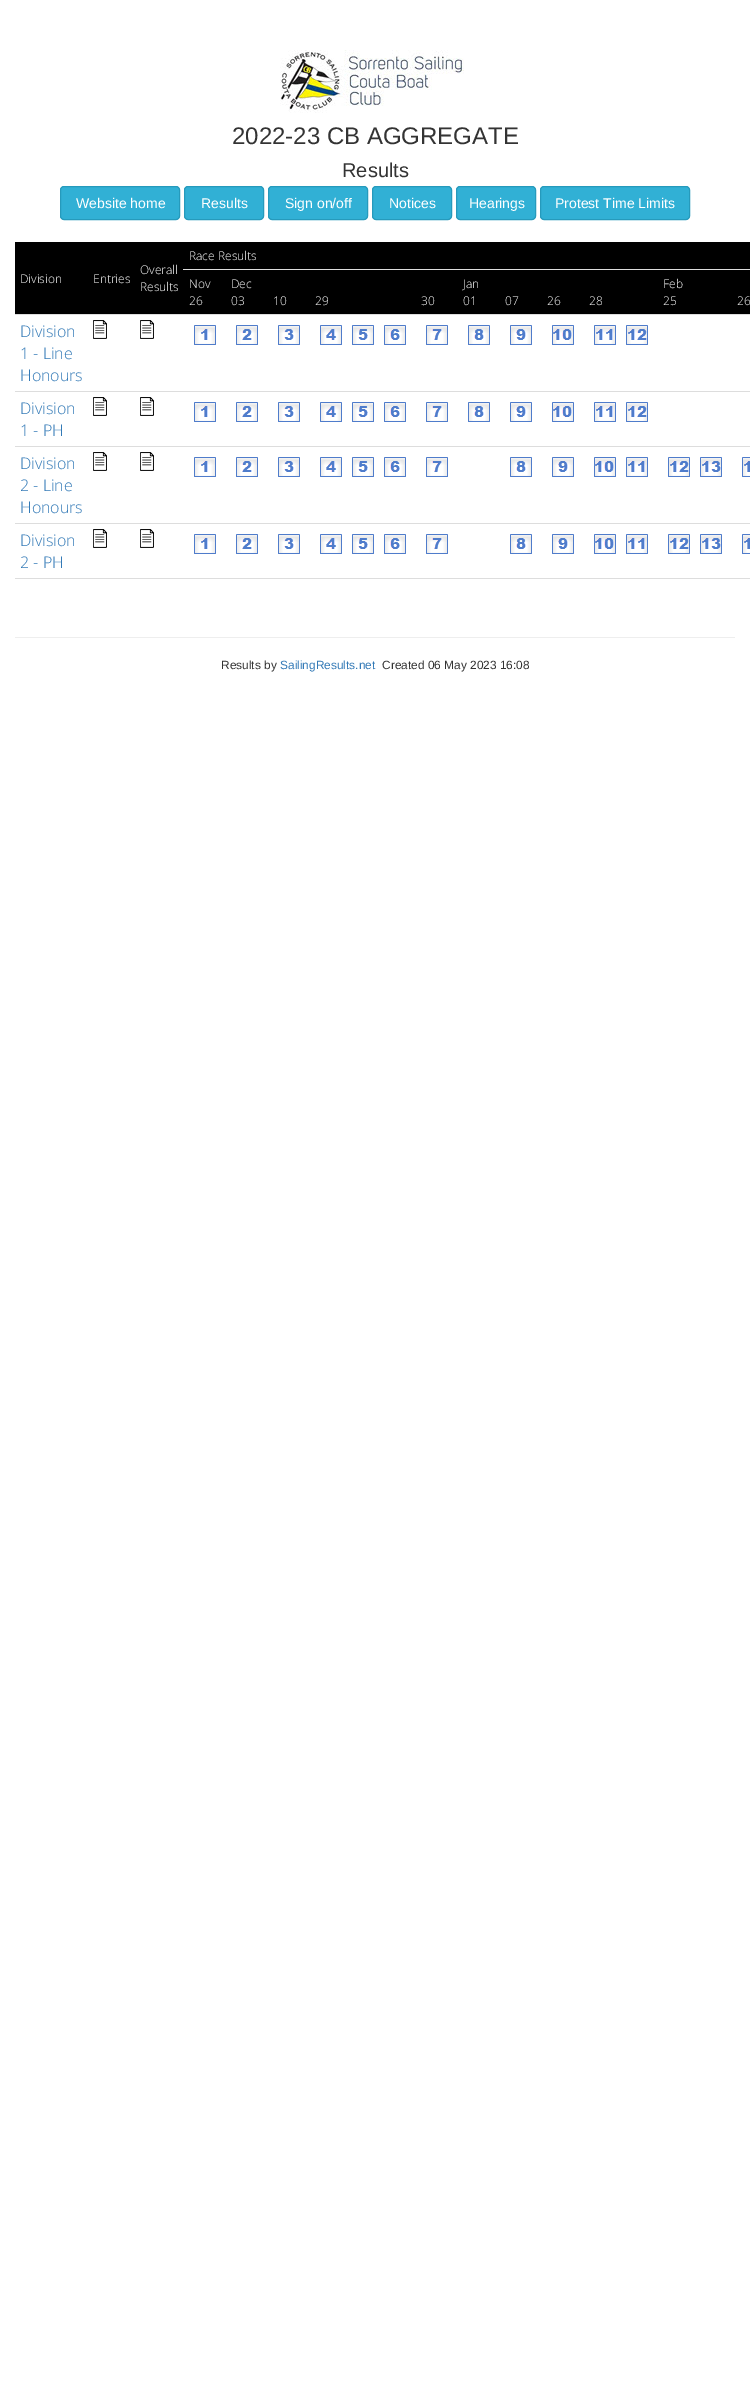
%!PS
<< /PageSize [750 2389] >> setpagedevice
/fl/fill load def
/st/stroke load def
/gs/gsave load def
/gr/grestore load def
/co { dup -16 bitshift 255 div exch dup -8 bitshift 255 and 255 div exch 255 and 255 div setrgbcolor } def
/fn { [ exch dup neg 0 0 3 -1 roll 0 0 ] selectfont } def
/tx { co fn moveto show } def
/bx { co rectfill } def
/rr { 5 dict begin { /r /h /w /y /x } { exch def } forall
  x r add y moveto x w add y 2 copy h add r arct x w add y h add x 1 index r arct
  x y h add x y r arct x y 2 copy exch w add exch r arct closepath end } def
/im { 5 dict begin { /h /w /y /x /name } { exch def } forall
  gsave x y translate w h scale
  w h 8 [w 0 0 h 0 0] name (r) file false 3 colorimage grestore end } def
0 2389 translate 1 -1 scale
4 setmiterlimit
0 0 750 2389 16#FFFFFF bx
(media/1.raw) 280 50 184 63 im
16#31B0D5 co
60.5 186.5 119 33 3.5 rr gs fl gr
16#269ABC co
st
16#31B0D5 co
184.5 186.5 79 33 3.5 rr gs fl gr
16#269ABC co
st
16#31B0D5 co
268.5 186.5 99 33 3.5 rr gs fl gr
16#269ABC co
st
16#31B0D5 co
372.5 186.5 79 33 3.5 rr gs fl gr
16#269ABC co
st
16#31B0D5 co
456.5 186.5 79 33 3.5 rr gs fl gr
16#269ABC co
st
16#31B0D5 co
540.5 186.5 149 33 3.5 rr gs fl gr
16#269ABC co
st
184 242 566 27 16#000000 bx
15 242 169 28 16#000000 bx
183 269 567 1 16#DDDDDD bx
15 270 735 44 16#000000 bx
15 314 735 1 16#DDDDDD bx
(media/2.raw) 93 320 14 19 im
(media/2.raw) 140 320 14 19 im
(media/3.raw) 194 325 22 20 im
(media/4.raw) 236 325 22 20 im
(media/5.raw) 278 325 22 20 im
(media/6.raw) 320 325 22 20 im
(media/7.raw) 352 325 22 20 im
(media/8.raw) 384 325 22 20 im
(media/9.raw) 426 325 22 20 im
(media/10.raw) 468 325 22 20 im
(media/11.raw) 510 325 22 20 im
(media/12.raw) 552 325 22 20 im
(media/13.raw) 594 325 22 20 im
(media/14.raw) 626 325 22 20 im
15 391 735 1 16#DDDDDD bx
(media/2.raw) 93 397 14 19 im
(media/2.raw) 140 397 14 19 im
(media/3.raw) 194 402 22 20 im
(media/4.raw) 236 402 22 20 im
(media/5.raw) 278 402 22 20 im
(media/6.raw) 320 402 22 20 im
(media/7.raw) 352 402 22 20 im
(media/8.raw) 384 402 22 20 im
(media/9.raw) 426 402 22 20 im
(media/10.raw) 468 402 22 20 im
(media/11.raw) 510 402 22 20 im
(media/12.raw) 552 402 22 20 im
(media/13.raw) 594 402 22 20 im
(media/14.raw) 626 402 22 20 im
15 446 735 1 16#DDDDDD bx
(media/2.raw) 93 452 14 19 im
(media/2.raw) 140 452 14 19 im
15 523 735 1 16#DDDDDD bx
(media/15.raw) 742 457 8 20 im
(media/3.raw) 194 457 22 20 im
(media/4.raw) 236 457 22 20 im
(media/5.raw) 278 457 22 20 im
(media/6.raw) 320 457 22 20 im
(media/7.raw) 352 457 22 20 im
(media/8.raw) 384 457 22 20 im
(media/9.raw) 426 457 22 20 im
(media/10.raw) 510 457 22 20 im
(media/11.raw) 552 457 22 20 im
(media/12.raw) 594 457 22 20 im
(media/13.raw) 626 457 22 20 im
(media/14.raw) 668 457 22 20 im
(media/16.raw) 700 457 22 20 im
(media/2.raw) 93 529 14 19 im
(media/2.raw) 140 529 14 19 im
15 578 735 1 16#DDDDDD bx
(media/15.raw) 742 534 8 20 im
(media/3.raw) 194 534 22 20 im
(media/4.raw) 236 534 22 20 im
(media/5.raw) 278 534 22 20 im
(media/6.raw) 320 534 22 20 im
(media/7.raw) 352 534 22 20 im
(media/8.raw) 384 534 22 20 im
(media/9.raw) 426 534 22 20 im
(media/10.raw) 510 534 22 20 im
(media/11.raw) 552 534 22 20 im
(media/12.raw) 594 534 22 20 im
(media/13.raw) 626 534 22 20 im
(media/14.raw) 668 534 22 20 im
(media/16.raw) 700 534 22 20 im
15 637 720 1 16#EEEEEE bx
(2022-23 CB AGGREGATE) 232 144 /LiberationSans-Regular 24 16#333333 tx
(Results) 342 177 /LiberationSans-Regular 20 16#333333 tx
(Website home) 76 208 /LiberationSans-Regular 14 16#FFFFFF tx
(Results) 201 208 /LiberationSans-Regular 14 16#FFFFFF tx
(Sign on/off) 285 208 /LiberationSans-Regular 14 16#FFFFFF tx
(Notices) 389 208 /LiberationSans-Regular 14 16#FFFFFF tx
(Hearings) 469 208 /LiberationSans-Regular 14 16#FFFFFF tx
(Protest Time Limits) 555 208 /LiberationSans-Regular 14 16#FFFFFF tx
(Race Results) 189 260 /OpenSans-Light 12 16#FFFFFF tx
(Division) 20 283 /OpenSans-Light 12 16#FFFFFF tx
(Entries) 93 283 /OpenSans-Light 12 16#FFFFFF tx
(Overall) 140 274 /OpenSans-Light 12 16#FFFFFF tx
(Results) 140 291 /OpenSans-Light 12 16#FFFFFF tx
(Nov) 189 288 /OpenSans-Light 12 16#FFFFFF tx
(26) 189 305 /OpenSans-Light 12 16#FFFFFF tx
(Dec) 231 288 /OpenSans-Light 12 16#FFFFFF tx
(03) 231 305 /OpenSans-Light 12 16#FFFFFF tx
(10) 273 305 /OpenSans-Light 12 16#FFFFFF tx
(29) 315 305 /OpenSans-Light 12 16#FFFFFF tx
(30) 421 305 /OpenSans-Light 12 16#FFFFFF tx
(Jan) 463 288 /OpenSans-Light 12 16#FFFFFF tx
(01) 463 305 /OpenSans-Light 12 16#FFFFFF tx
(07) 505 305 /OpenSans-Light 12 16#FFFFFF tx
(26) 547 305 /OpenSans-Light 12 16#FFFFFF tx
(28) 589 305 /OpenSans-Light 12 16#FFFFFF tx
(Feb) 663 288 /OpenSans-Light 12 16#FFFFFF tx
(25) 663 305 /OpenSans-Light 12 16#FFFFFF tx
(26) 737 305 /OpenSans-Light 12 16#FFFFFF tx
(Division) 20 337 /OpenSans-Light 16 16#337AB7 tx
(1 - Line) 20 359 /OpenSans-Light 16 16#337AB7 tx
(Honours) 20 381 /OpenSans-Light 16 16#337AB7 tx
(Division) 20 414 /OpenSans-Light 16 16#337AB7 tx
(1 - PH) 20 436 /OpenSans-Light 16 16#337AB7 tx
(Division) 20 469 /OpenSans-Light 16 16#337AB7 tx
(2 - Line) 20 491 /OpenSans-Light 16 16#337AB7 tx
(Honours) 20 513 /OpenSans-Light 16 16#337AB7 tx
(Division) 20 546 /OpenSans-Light 16 16#337AB7 tx
(2 - PH) 20 568 /OpenSans-Light 16 16#337AB7 tx
(Results by) 221 669 /LiberationSans-Regular 11.9 16#333333 tx
(SailingResults.net) 280 669 /LiberationSans-Regular 11.9 16#337AB7 tx
(Created 06 May 2023 16:08) 382 669 /LiberationSans-Regular 11.9 16#333333 tx
showpage
